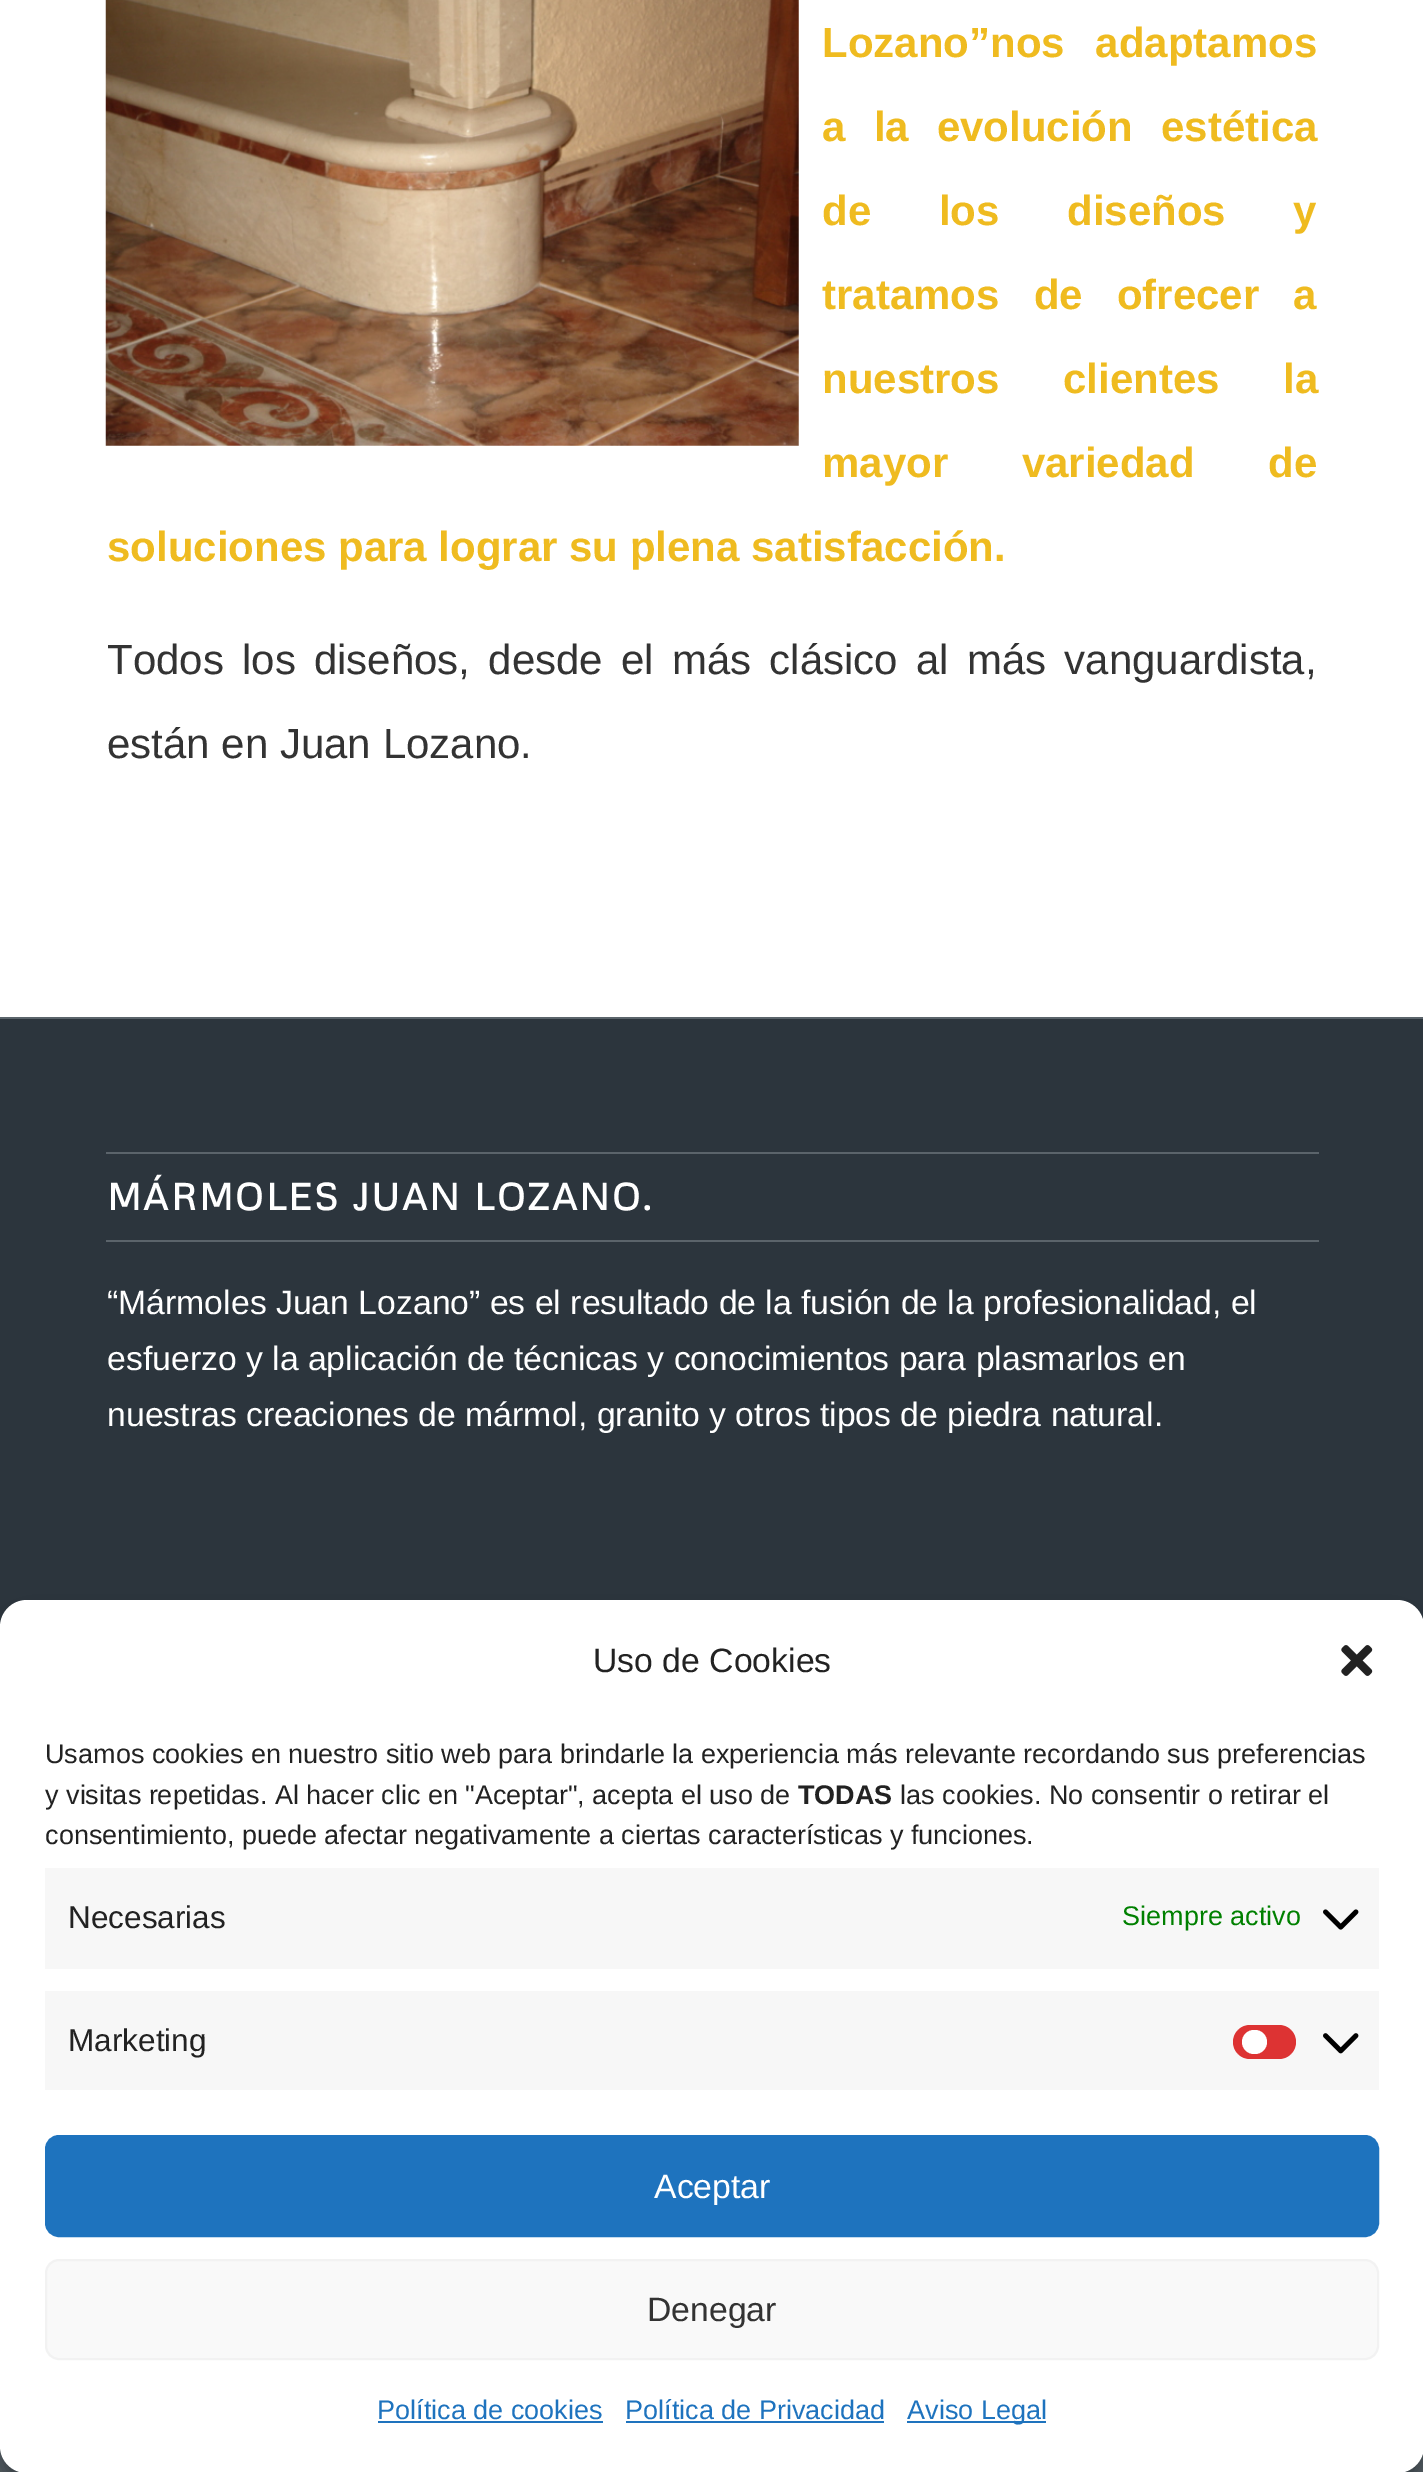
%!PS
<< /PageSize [1423 2472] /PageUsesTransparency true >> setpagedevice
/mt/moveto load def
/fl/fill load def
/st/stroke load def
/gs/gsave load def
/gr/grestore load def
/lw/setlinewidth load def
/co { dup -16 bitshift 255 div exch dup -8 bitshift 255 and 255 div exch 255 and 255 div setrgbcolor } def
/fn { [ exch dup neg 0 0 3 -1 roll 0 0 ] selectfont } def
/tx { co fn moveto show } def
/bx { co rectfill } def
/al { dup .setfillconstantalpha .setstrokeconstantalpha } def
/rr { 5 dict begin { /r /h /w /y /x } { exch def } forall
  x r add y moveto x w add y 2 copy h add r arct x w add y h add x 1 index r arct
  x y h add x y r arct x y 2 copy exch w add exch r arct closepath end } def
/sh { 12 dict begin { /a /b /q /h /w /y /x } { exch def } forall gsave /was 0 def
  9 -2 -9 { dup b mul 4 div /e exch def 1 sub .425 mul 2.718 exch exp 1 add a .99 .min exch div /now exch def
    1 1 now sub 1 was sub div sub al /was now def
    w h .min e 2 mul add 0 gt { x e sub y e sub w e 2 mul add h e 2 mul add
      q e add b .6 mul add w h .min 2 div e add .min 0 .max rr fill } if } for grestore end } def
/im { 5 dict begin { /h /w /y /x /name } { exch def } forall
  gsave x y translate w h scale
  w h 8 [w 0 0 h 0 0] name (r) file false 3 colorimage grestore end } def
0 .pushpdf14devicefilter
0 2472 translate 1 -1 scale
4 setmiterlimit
0 0 1423 2472 16#FFFFFF bx
(media/1.raw) 105 0 694 446 im
0 1019 1423 608 16#2C353D bx
0 1017 1423 2 16#5B646B bx
106 1152 1213 2 16#5B646B bx
106 1240 1213 2 16#5B646B bx
0 2446 1423 26 16#5B646B bx
16#000000 co
0 1613 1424 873 27 7 .23 sh
0 1622 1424 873 27 22.5 .19 sh
16#FFFFFF co
0 1600 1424 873 27 rr fl
(media/2.raw) 1341 1645 32 31 im
45 1868 1334 101 16#F7F7F7 bx
(media/3.raw) 1323 1909 36 21 im
45 1991 1334 99 16#F7F7F7 bx
16#DD3333 co
1233 2025 63 34 17 rr fl
16#FFFFFF co
1242 2030 25 24 12 rr fl
(media/4.raw) 1323 2033 36 21 im
16#1E73BE co
46 2136 1332 100 13 rr gs fl gr
2 lw
st
16#F9F9F9 co
46 2260 1332 99 13 rr gs fl gr
16#F2F2F2 co
st
378 2421 225 2 16#1E73BE bx
626 2421 258 2 16#1E73BE bx
907 2421 139 2 16#1E73BE bx
/LiberationSans-Bold 42 fn
16#EFBB20 co
822 57 mt 19 0 32 (Lozano”nos adaptamos) widthshow
822 141 mt 16.5 0 32 (a la evolución estética) widthshow
822 225 mt 56 0 32 (de los diseños y) widthshow
822 309 mt 22.5 0 32 (tratamos de ofrecer a) widthshow
822 393 mt 52 0 32 (nuestros clientes la) widthshow
822 477 mt 62 0 32 (mayor variedad de) widthshow
(soluciones para lograr su plena satisfacción.) 107 561 /LiberationSans-Bold 42 16#EFBB20 tx
/LiberationSans-Regular 42 fn
16#333333 co
107 674 mt 6.5 0 32 (Todos los diseños, desde el más clásico al más vanguardista,) widthshow
(están en Juan Lozano.) 107 758 /LiberationSans-Regular 42 16#333333 tx
/Metrophobic-Bold 37.1 fn
16#FFFFFF co
107 1210 mt 2.25 0 (MÁRMOLES JUAN LOZANO.) ashow
(“Mármoles Juan Lozano” es el resultado de la fusión de la profesionalidad, el) 107 1314 /LiberationSans-Regular 33.75 16#FFFFFF tx
(esfuerzo y la aplicación de técnicas y conocimientos para plasmarlos en) 107 1370 /LiberationSans-Regular 33.75 16#FFFFFF tx
(nuestras creaciones de mármol, granito y otros tipos de piedra natural.) 107 1426 /LiberationSans-Regular 33.75 16#FFFFFF tx
(Uso de Cookies) 593 1672 /LiberationSans-Regular 33.75 16#222222 tx
(Usamos cookies en nuestro sitio web para brindarle la experiencia más relevante recordando sus preferencias) 45 1763 /LiberationSans-Regular 27 16#222222 tx
(y visitas repetidas. Al hacer clic en "Aceptar", acepta el uso de) 45 1804 /LiberationSans-Regular 27 16#222222 tx
(TODAS) 798 1804 /LiberationSans-Bold 27 16#222222 tx
(las cookies. No consentir o retirar el) 900 1804 /LiberationSans-Regular 27 16#222222 tx
(consentimiento, puede afectar negativamente a ciertas características y funciones.) 45 1844 /LiberationSans-Regular 27 16#222222 tx
(Necesarias) 68 1928 /LiberationSans-Regular 31.5 16#222222 tx
(Siempre activo) 1122 1925 /LiberationSans-Regular 27 16#008000 tx
(Marketing) 68 2051 /LiberationSans-Regular 31.5 16#222222 tx
(Aceptar) 654 2198 /LiberationSans-Regular 33.75 16#FFFFFF tx
(Denegar) 647 2321 /LiberationSans-Regular 33.75 16#333333 tx
(Política de cookies) 377 2419 /LiberationSans-Regular 27 16#1E73BE tx
(Política de Privacidad) 625 2419 /LiberationSans-Regular 27 16#1E73BE tx
(Aviso Legal) 907 2419 /LiberationSans-Regular 27 16#1E73BE tx
.poppdf14devicefilter showpage
